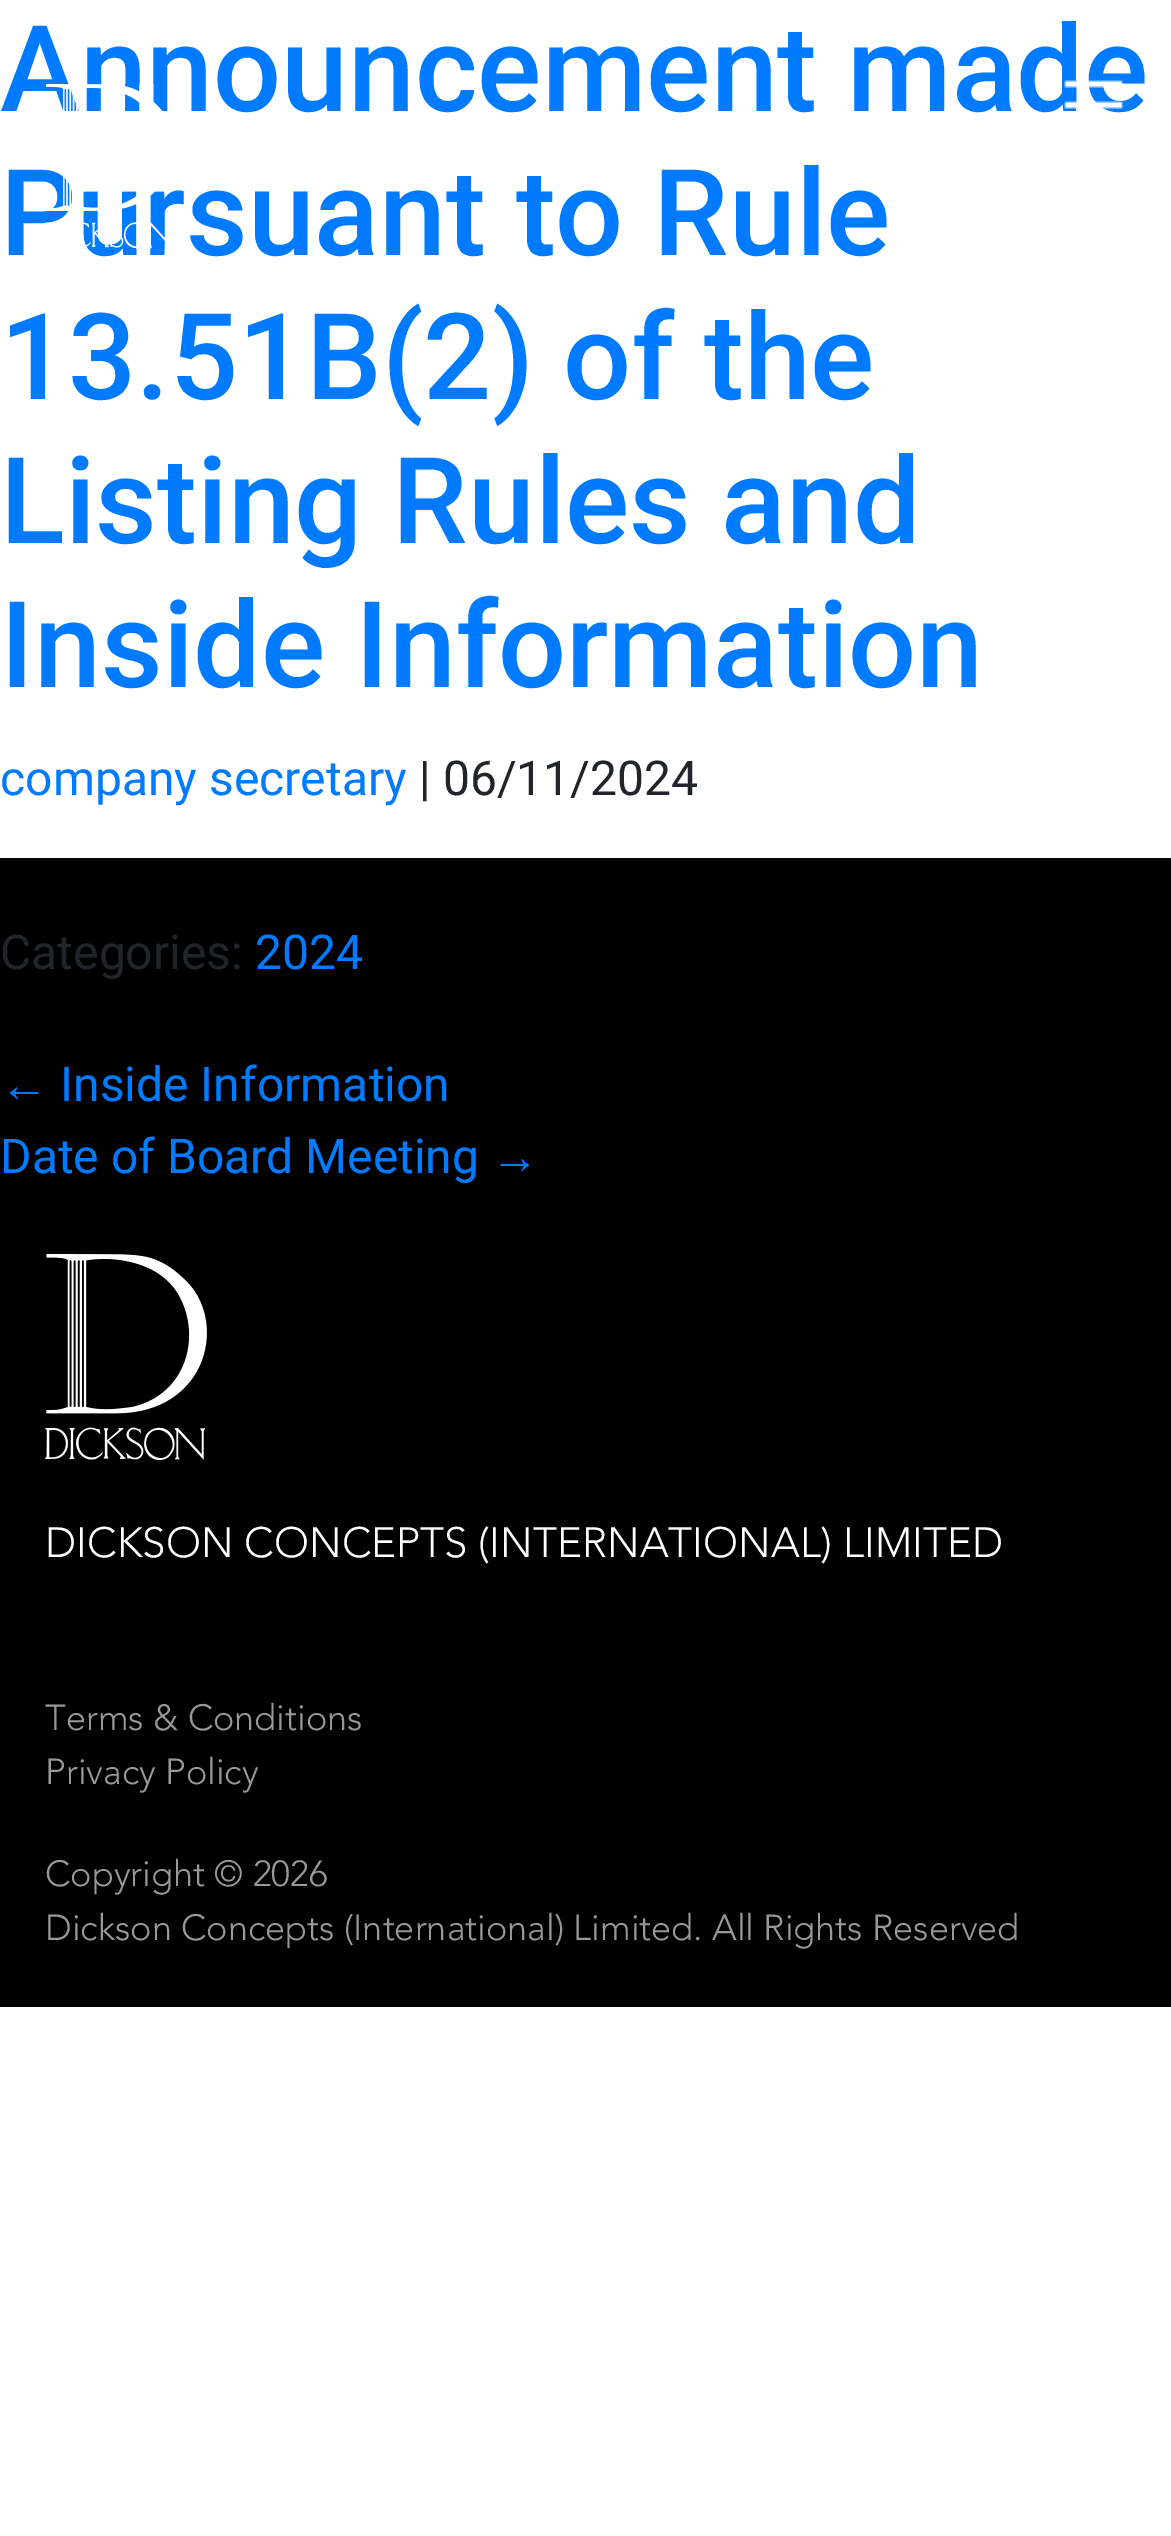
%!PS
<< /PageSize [1171 2536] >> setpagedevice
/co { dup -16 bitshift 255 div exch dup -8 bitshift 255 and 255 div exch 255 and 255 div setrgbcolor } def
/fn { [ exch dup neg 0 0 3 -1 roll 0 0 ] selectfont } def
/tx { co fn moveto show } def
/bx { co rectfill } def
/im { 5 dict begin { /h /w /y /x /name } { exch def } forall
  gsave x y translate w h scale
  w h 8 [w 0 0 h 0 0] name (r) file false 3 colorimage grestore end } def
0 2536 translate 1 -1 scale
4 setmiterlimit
0 0 1171 2536 16#FFFFFF bx
0 858 1171 1149 16#000000 bx
(media/3.raw) 45 1254 162 207 im
(Announcement made) 0 111 /Roboto-Medium 120 16#007BFF tx
(Pursuant to Rule) 0 255 /Roboto-Medium 120 16#007BFF tx
(13.51B\(2\) of the) 0 399 /Roboto-Medium 120 16#007BFF tx
(Listing Rules and) 0 543 /Roboto-Medium 120 16#007BFF tx
(Inside Information) 0 687 /Roboto-Medium 120 16#007BFF tx
(company secretary) 0 795 /Roboto-Regular 48 16#007BFF tx
(| 06/11/2024) 419 795 /Roboto-Regular 48 16#212529 tx
(Categories:) 0 969 /Roboto-Regular 48 16#212529 tx
(2024) 255 969 /Roboto-Regular 48 16#007BFF tx
(←) 0 1101 /LiberationSans-Regular 48 16#007BFF tx
(Inside Information) 60 1101 /Roboto-Regular 48 16#007BFF tx
(Date of Board Meeting) 0 1173 /Roboto-Regular 48 16#007BFF tx
(→) 491 1173 /LiberationSans-Regular 48 16#007BFF tx
(media/1.raw) 45 84 120 165 im
(media/2.raw) 1064 80 59 29 im
(DICKSON CONCEPTS \(INTERNATIONAL\) LIMITED) 45 1557 /Avenir-Light 42 16#FFFFFF tx
(Terms & Conditions) 45 1730 /Avenir-Light 36 16#999999 tx
(Privacy Policy) 45 1784 /Avenir-Light 36 16#999999 tx
(Copyright © 2026) 45 1886 /Avenir-Light 36 16#999999 tx
(Dickson Concepts \(International\) Limited. All Rights Reserved) 45 1940 /Avenir-Light 36 16#999999 tx
showpage
